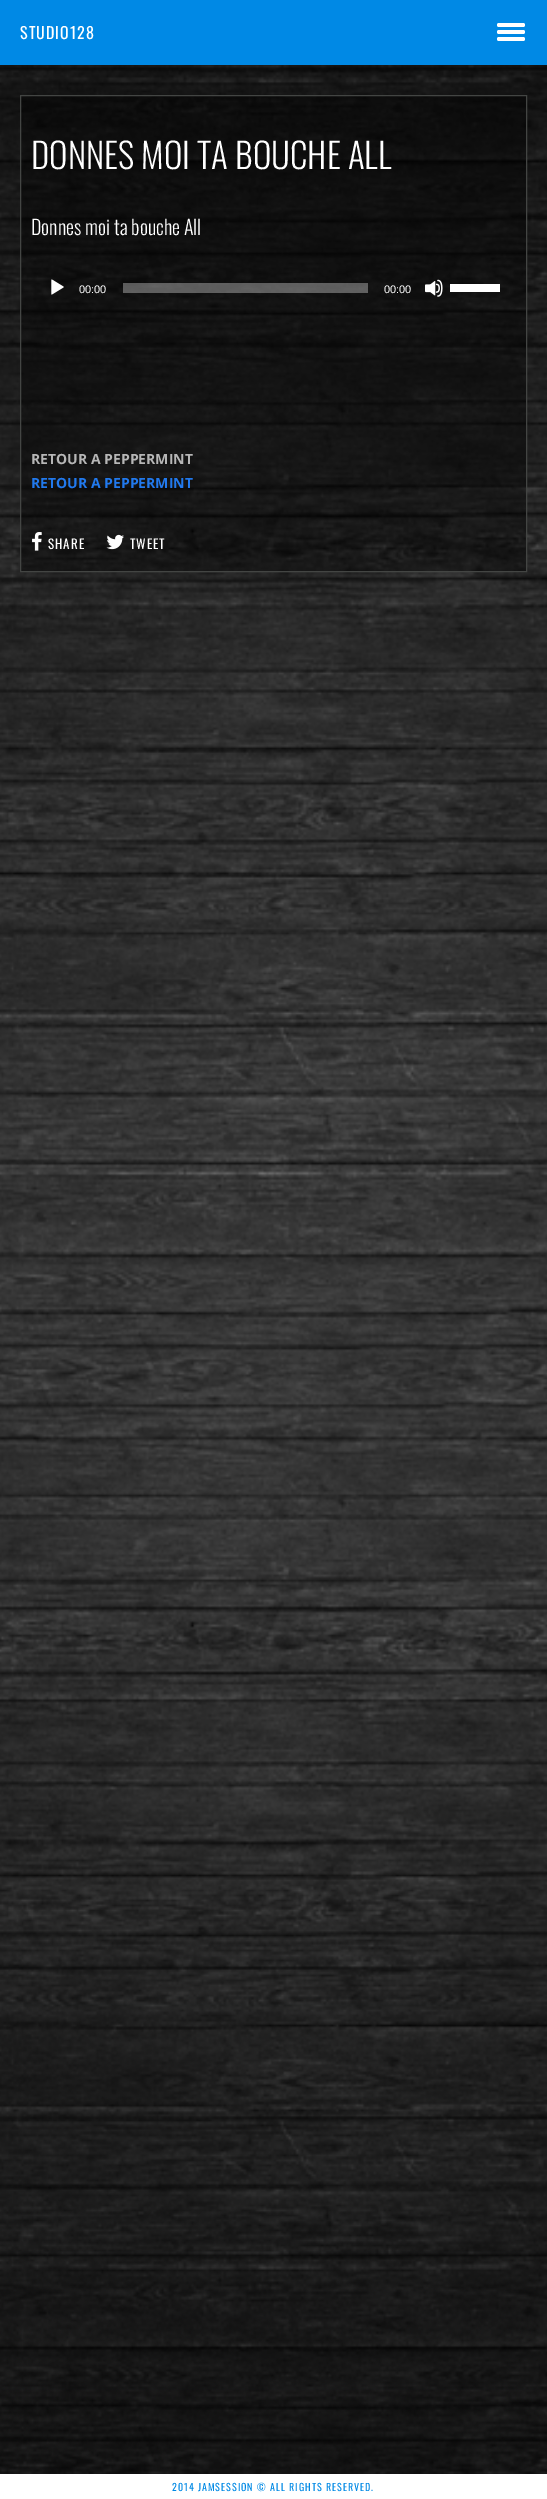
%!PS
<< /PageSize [547 2499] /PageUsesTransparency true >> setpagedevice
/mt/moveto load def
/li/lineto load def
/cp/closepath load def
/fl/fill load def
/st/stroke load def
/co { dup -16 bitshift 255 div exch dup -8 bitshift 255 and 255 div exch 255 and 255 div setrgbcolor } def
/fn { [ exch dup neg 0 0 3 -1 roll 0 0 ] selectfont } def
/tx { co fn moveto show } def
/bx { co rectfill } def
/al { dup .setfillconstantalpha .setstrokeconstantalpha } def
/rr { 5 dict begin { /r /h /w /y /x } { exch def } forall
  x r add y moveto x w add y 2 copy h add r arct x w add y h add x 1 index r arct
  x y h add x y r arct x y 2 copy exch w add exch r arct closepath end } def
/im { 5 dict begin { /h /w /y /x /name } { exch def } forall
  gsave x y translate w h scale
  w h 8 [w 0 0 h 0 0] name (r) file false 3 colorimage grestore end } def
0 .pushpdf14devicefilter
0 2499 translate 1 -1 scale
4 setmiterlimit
0 0 547 2499 16#FFFFFF bx
0 0 547 65 16#0089E5 bx
16#FFFFFF co
497 23 28 4 2 rr fl
497 30 28 4 2 rr fl
497 37 28 4 2 rr fl
(media/1.raw) 0 65 547 2409 im
0.4 al
16#000000 co
20.5 95.5 mt 526.5 95.5 li 526.5 571.5 li 20.5 571.5 li cp fl
1 al
16#434543 co
20.5 95.5 mt 526.5 95.5 li 526.5 571.5 li 20.5 571.5 li cp st
(media/2.raw) 51 279 13 16 im
0.33 al
123 283 245 10 16#FFFFFF bx
1 al
(media/3.raw) 425 279 18 18 im
450 284 50 8 16#FFFFFF bx
(media/4.raw) 32 532 10 19 im
(media/5.raw) 106 534 18 16 im
/Oswald-Regular 16 fn
20 39 mt 1 0 (STUDIO128) ashow
(DONNES MOI TA BOUCHE ALL) 31 169 /Oswald-Light 35 16#FFFFFF tx
(Donnes moi ta bouche All) 31 235 /Oswald-Light 20 16#FFFFFF tx
(00:00) 79 293 /LiberationSans-Regular 11 16#FFFFFF tx
(00:00) 384 293 /LiberationSans-Regular 11 16#FFFFFF tx
(RETOUR A PEPPERMINT) 31 464 /OpenSans-Bold 14 16#B6B6B6 tx
(RETOUR A PEPPERMINT) 31 488 /OpenSans-Bold 14 16#2179ED tx
/Oswald-Regular 13 fn
16#FFFFFF co
48 549 mt 1 0 (SHARE) ashow
130 549 mt 1 0 (TWEET) ashow
/Oswald-Regular 10 fn
16#0089E5 co
172 2491 mt 1 0 (2014 JAMSESSION © ALL RIGHTS RESERVED.) ashow
.poppdf14devicefilter showpage
